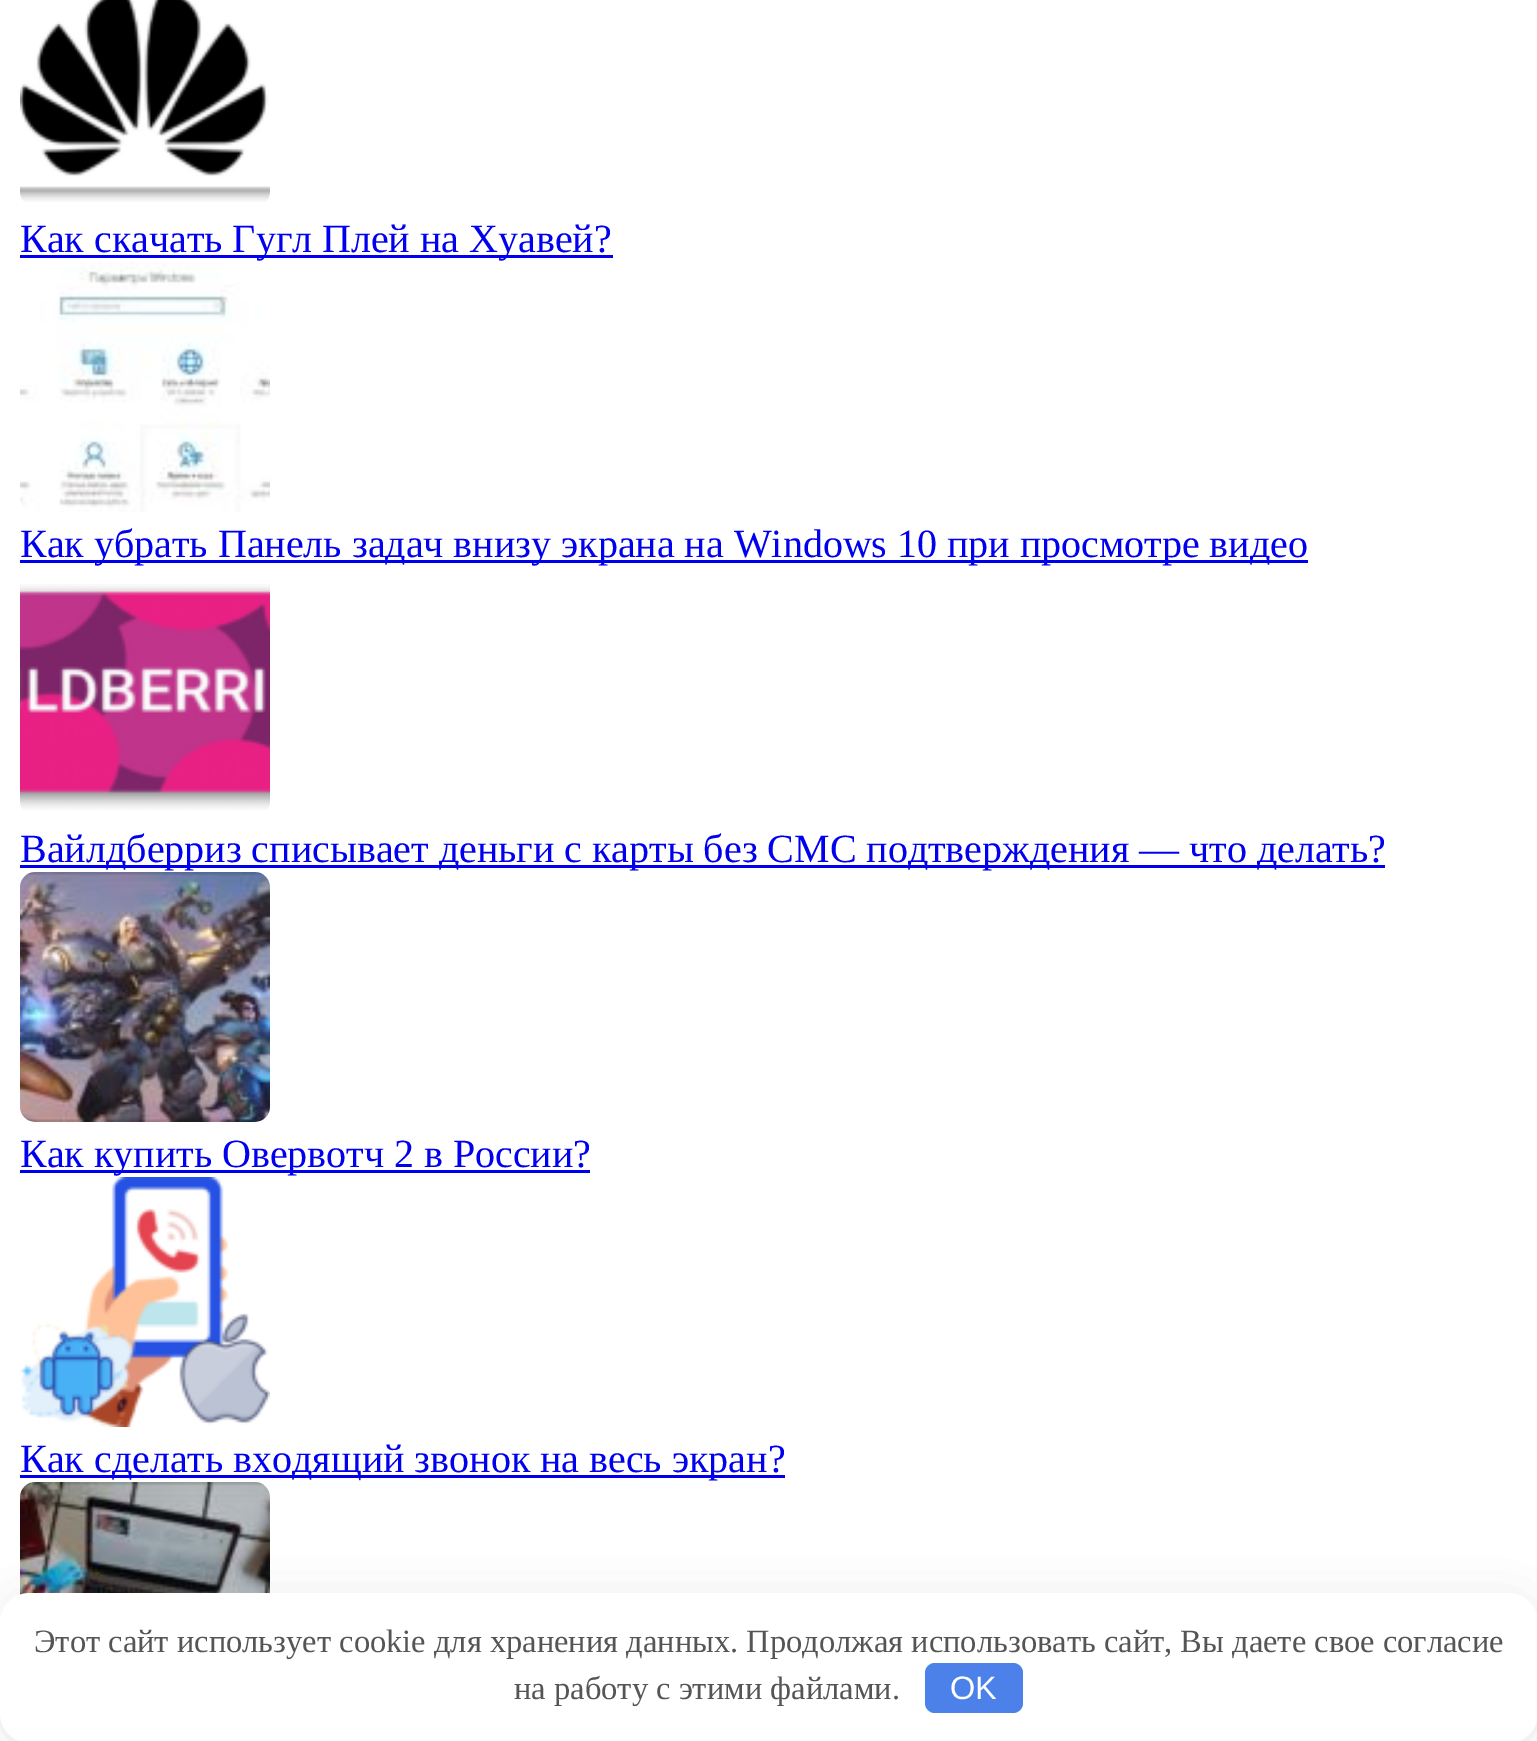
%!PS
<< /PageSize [1537 1741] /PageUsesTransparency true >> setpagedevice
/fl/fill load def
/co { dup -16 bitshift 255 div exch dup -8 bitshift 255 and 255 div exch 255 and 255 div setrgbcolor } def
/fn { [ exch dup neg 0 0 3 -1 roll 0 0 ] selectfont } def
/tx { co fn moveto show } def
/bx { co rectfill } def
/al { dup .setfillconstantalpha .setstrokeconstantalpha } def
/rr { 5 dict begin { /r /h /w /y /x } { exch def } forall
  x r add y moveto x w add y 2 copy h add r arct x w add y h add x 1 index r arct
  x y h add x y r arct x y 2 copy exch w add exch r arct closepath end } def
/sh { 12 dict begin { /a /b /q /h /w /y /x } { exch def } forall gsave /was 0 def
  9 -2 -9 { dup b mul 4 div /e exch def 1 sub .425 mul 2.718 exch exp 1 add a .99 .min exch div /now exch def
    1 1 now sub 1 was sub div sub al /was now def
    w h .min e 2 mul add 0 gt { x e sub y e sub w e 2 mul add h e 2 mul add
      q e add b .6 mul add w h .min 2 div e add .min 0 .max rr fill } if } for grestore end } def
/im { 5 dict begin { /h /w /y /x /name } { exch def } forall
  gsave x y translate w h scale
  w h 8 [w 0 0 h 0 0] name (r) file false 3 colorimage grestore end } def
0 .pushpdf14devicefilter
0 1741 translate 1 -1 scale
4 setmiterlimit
0 0 1537 1741 16#FFFFFF bx
(media/1.raw) 20 0 250 202 im
20 255 593 3 16#0000EE bx
(media/2.raw) 20 262 250 250 im
20 560 1288 3 16#0000EE bx
(media/3.raw) 20 584 250 226 im
20 865 1365 3 16#0000EE bx
(media/4.raw) 20 872 250 250 im
20 1170 570 3 16#0000EE bx
(media/5.raw) 20 1177 250 250 im
20 1475 765 3 16#0000EE bx
(media/6.raw) 20 1482 250 113 im
16#292C38 co
13 1613 1512 125 18 25 .2 sh
16#FFFFFF co
0 1593 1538 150 30 rr fl
16#4B81E8 co
925 1663 98 50 10 rr fl
(Как скачать Гугл Плей на Хуавей?) 20 252 /LiberationSerif-Regular 40 16#0000EE tx
(Как убрать Панель задач внизу экрана на Windows 10 при просмотре видео) 20 557 /LiberationSerif-Regular 40 16#0000EE tx
(Вайлдберриз списывает деньги с карты без СМС подтверждения — что делать?) 20 862 /LiberationSerif-Regular 40 16#0000EE tx
(Как купить Овервотч 2 в России?) 20 1167 /LiberationSerif-Regular 40 16#0000EE tx
(Как сделать входящий звонок на весь экран?) 20 1472 /LiberationSerif-Regular 40 16#0000EE tx
(Этот сайт использует cookie для хранения данных. Продолжая использовать сайт, Вы даете свое согласие) 34 1652 /LiberationSerif-Regular 32.5 16#555555 tx
(на работу с этими файлами.) 514 1699 /LiberationSerif-Regular 32.5 16#555555 tx
(OK) 950 1699 /LiberationSans-Regular 32.5 16#FFFFFF tx
.poppdf14devicefilter showpage
